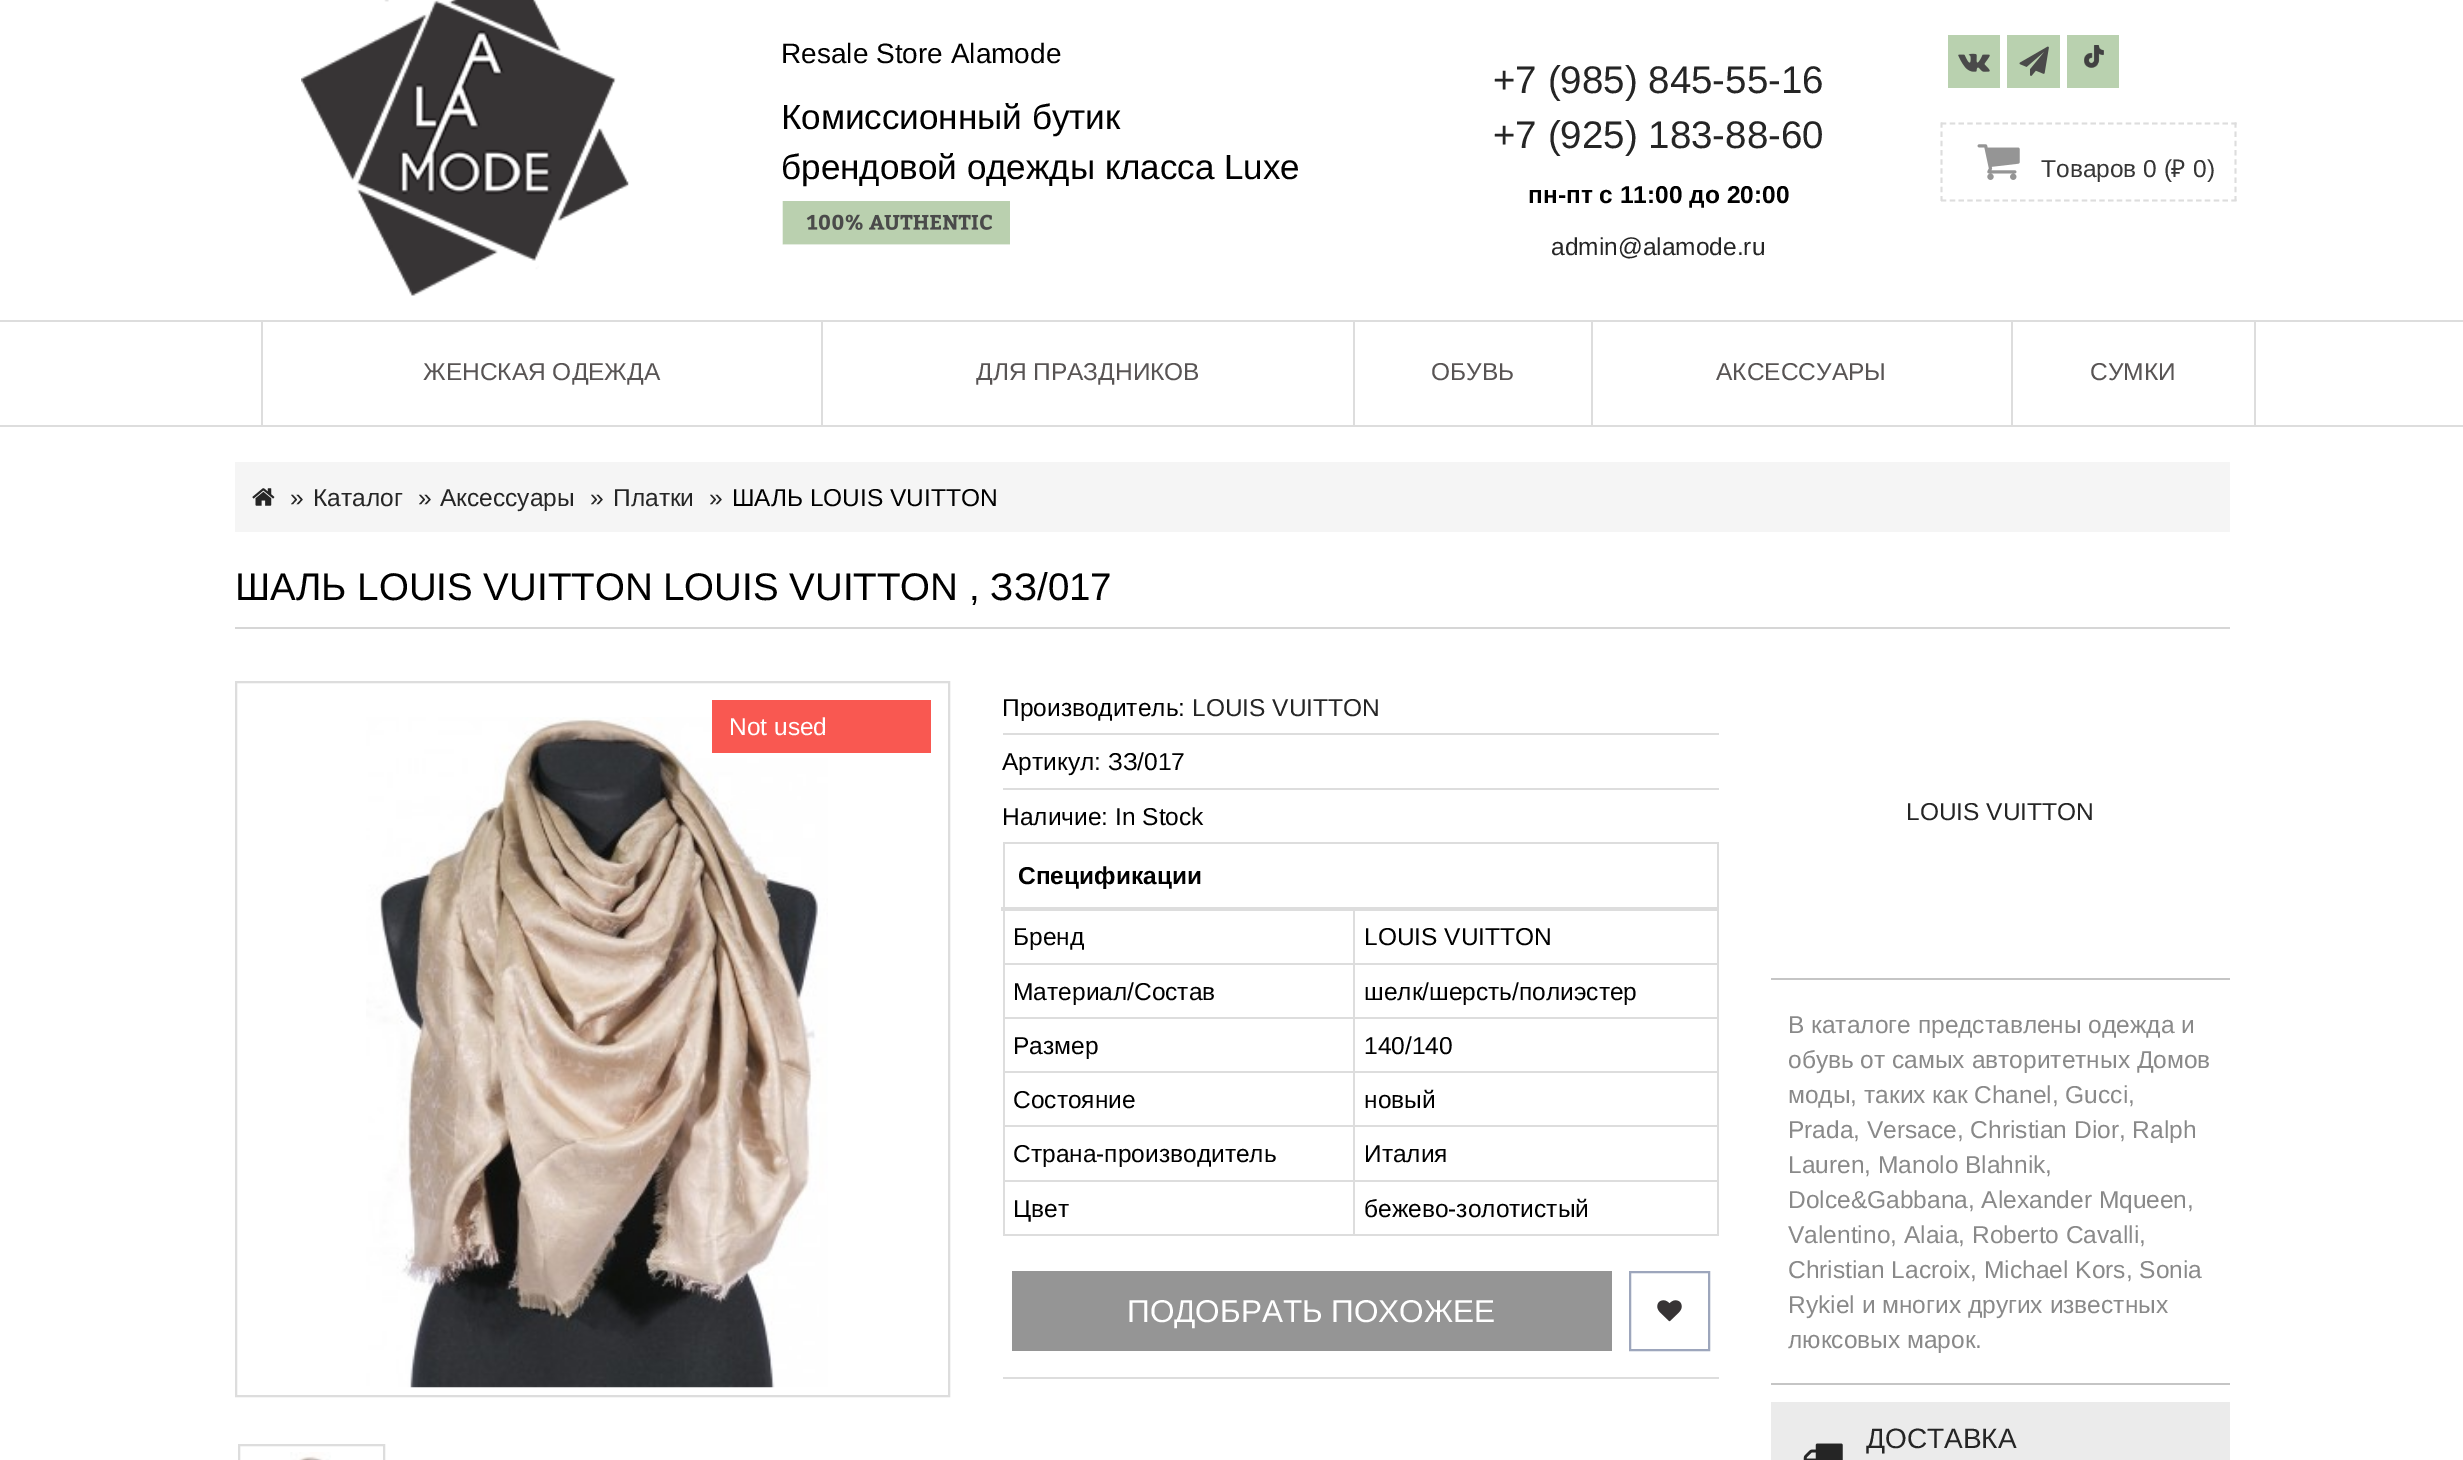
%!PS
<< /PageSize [2463 1460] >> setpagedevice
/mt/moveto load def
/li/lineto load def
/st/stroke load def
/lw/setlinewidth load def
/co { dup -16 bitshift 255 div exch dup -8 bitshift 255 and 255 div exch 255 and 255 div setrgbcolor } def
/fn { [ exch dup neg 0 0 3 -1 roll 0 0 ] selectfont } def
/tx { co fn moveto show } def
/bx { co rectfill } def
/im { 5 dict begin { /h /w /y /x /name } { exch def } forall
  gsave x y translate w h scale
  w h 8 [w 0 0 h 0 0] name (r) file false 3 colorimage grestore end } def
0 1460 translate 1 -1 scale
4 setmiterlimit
0 0 2463 1460 16#FFFFFF bx
0 425 2463 2 16#DDDDDD bx
(media/1.raw) 301 0 328 296 im
(media/2.raw) 782 201 228 44 im
1948 35 52 53 16#B9D1AF bx
(media/3.raw) 1958 53 32 19 im
2007 35 53 53 16#B9D1AF bx
(media/4.raw) 2019 46 30 30 im
2067 35 52 53 16#B9D1AF bx
(media/5.raw) 2084 45 20 23 im
16#DDDDDD co
1.8 lw
[5.25 3.55] 0 setdash
1941 123.5 mt 2236.5 123.5 li st
[5.25 3.94] 0 setdash
2235.5 122.5 mt 2235.5 201 li st
[5.25 3.55] 0 setdash
1941 200.5 mt 2236.5 200.5 li st
[5.25 3.94] 0 setdash
1941.5 122.5 mt 1941.5 201 li st
(media/6.raw) 1977 144 43 36 im
0 320 2463 2 16#DDDDDD bx
261 322 2 103 16#DDDDDD bx
821 322 2 103 16#DDDDDD bx
1353 322 2 103 16#DDDDDD bx
1591 322 2 103 16#DDDDDD bx
2254 322 2 103 16#DDDDDD bx
2011 322 2 103 16#DDDDDD bx
235 462 1995 70 16#F5F5F5 bx
(media/7.raw) 252 488 23 18 im
235 627 1995 2 16#D6D6D6 bx
16#DDDDDD co
2 lw
[] 0 setdash
236 682 713 714 rectstroke
(media/8.raw) 366 717 462 671 im
712 700 219 53 16#F95851 bx
16#DDDDDD co
239 1445 145 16 rectstroke
(media/9.raw) 290 1452 41 8 im
1003 733 716 2 16#DDDDDD bx
1003 788 716 2 16#DDDDDD bx
1003 842 716 2 16#DDDDDD bx
1717 842 2 394 16#DDDDDD bx
1003 1234 716 2 16#DDDDDD bx
1003 842 2 394 16#DDDDDD bx
1353 963 366 2 16#DDDDDD bx
1353 1017 366 2 16#DDDDDD bx
1353 1071 366 2 16#DDDDDD bx
1353 1125 366 2 16#DDDDDD bx
1353 1180 366 2 16#DDDDDD bx
1353 1180 2 56 16#DDDDDD bx
1003 1180 352 2 16#DDDDDD bx
1353 1125 2 56 16#DDDDDD bx
1003 1125 352 2 16#DDDDDD bx
1353 1071 2 56 16#DDDDDD bx
1003 1071 352 2 16#DDDDDD bx
1353 1017 2 56 16#DDDDDD bx
1003 1017 352 2 16#DDDDDD bx
1353 963 2 56 16#DDDDDD bx
1003 963 352 2 16#DDDDDD bx
1353 908 2 56 16#DDDDDD bx
1001 907 718 4 16#DDDDDD bx
1003 1377 716 2 16#DDDDDD bx
1012 1271 600 80 16#959595 bx
16#9DA6BC co
1630 1272 79 78 rectstroke
(media/10.raw) 1657 1300 25 22 im
1771 978 459 2 16#C5C5C5 bx
1771 1383 459 2 16#C5C5C5 bx
1771 1402 459 58 16#EBEBEB bx
(media/11.raw) 1803 1443 40 17 im
(Resale Store Alamode) 781 63 /LiberationSans-Regular 28 16#000000 tx
(Комиссионный бутик) 781 129 /LiberationSans-Regular 35 16#000000 tx
(брендовой одежды класса Luxe) 781 179 /LiberationSans-Regular 35 16#000000 tx
(+7 \(985\) 845-55-16) 1493 93 /LiberationSans-Regular 38.5 16#252525 tx
(+7 \(925\) 183-88-60) 1493 148 /LiberationSans-Regular 38.5 16#252525 tx
(пн-пт с 11:00 до 20:00) 1528 203 /LiberationSans-Bold 24.5 16#000000 tx
(admin@alamode.ru) 1551 255 /LiberationSans-Regular 24.5 16#252525 tx
(Товаров 0 \() 2041 177 /LiberationSans-Regular 24.5 16#363636 tx
(₽) 2171 177 /NotoSans-Regular 24.5 16#363636 tx
(0\)) 2193 177 /LiberationSans-Regular 24.5 16#363636 tx
(ЖЕНСКАЯ ОДЕЖДА) 423 380 /LiberationSans-Regular 24.5 16#585454 tx
(ДЛЯ ПРАЗДНИКОВ) 976 380 /LiberationSans-Regular 24.5 16#585454 tx
(ОБУВЬ) 1431 380 /LiberationSans-Regular 24.5 16#585454 tx
(АКСЕССУАРЫ) 1716 380 /LiberationSans-Regular 24.5 16#585454 tx
(СУМКИ) 2090 380 /LiberationSans-Regular 24.5 16#585454 tx
(») 290 506 /LiberationSans-Regular 24.5 16#252525 tx
(Каталог) 313 506 /LiberationSans-Regular 24.5 16#252525 tx
(») 418 506 /LiberationSans-Regular 24.5 16#252525 tx
(Аксессуары) 440 506 /LiberationSans-Regular 24.5 16#252525 tx
(») 590 506 /LiberationSans-Regular 24.5 16#252525 tx
(Платки) 613 506 /LiberationSans-Regular 24.5 16#252525 tx
(») 709 506 /LiberationSans-Regular 24.5 16#252525 tx
(ШАЛЬ LOUIS VUITTON) 732 506 /LiberationSans-Regular 24.5 16#000000 tx
(ШАЛЬ LOUIS VUITTON LOUIS VUITTON , ЗЗ/017) 235 600 /LiberationSans-Regular 38.5 16#000000 tx
(Not used) 729 735 /LiberationSans-Regular 24.5 16#FFFFFF tx
(Производитель:) 1002 716 /LiberationSans-Regular 24.5 16#000000 tx
(LOUIS VUITTON) 1192 716 /LiberationSans-Regular 24.5 16#252525 tx
(Артикул: ЗЗ/017) 1002 770 /LiberationSans-Regular 24.5 16#000000 tx
(Наличие: In Stock) 1002 825 /LiberationSans-Regular 24.5 16#000000 tx
(Спецификации) 1018 884 /LiberationSans-Bold 24.5 16#000000 tx
(Бренд) 1013 945 /LiberationSans-Regular 24.5 16#000000 tx
(LOUIS VUITTON) 1364 945 /LiberationSans-Regular 24.5 16#000000 tx
(Материал/Состав) 1013 1000 /LiberationSans-Regular 24.5 16#000000 tx
(шелк/шерсть/полиэстер) 1364 1000 /LiberationSans-Regular 24.5 16#000000 tx
(Размер) 1013 1054 /LiberationSans-Regular 24.5 16#000000 tx
(140/140) 1364 1054 /LiberationSans-Regular 24.5 16#000000 tx
(Состояние) 1013 1108 /LiberationSans-Regular 24.5 16#000000 tx
(новый) 1364 1108 /LiberationSans-Regular 24.5 16#000000 tx
(Страна-производитель) 1013 1162 /LiberationSans-Regular 24.5 16#000000 tx
(Италия) 1364 1162 /LiberationSans-Regular 24.5 16#000000 tx
(Цвет) 1013 1217 /LiberationSans-Regular 24.5 16#000000 tx
(бежево-золотистый) 1364 1217 /LiberationSans-Regular 24.5 16#000000 tx
(ПОДОБРАТЬ ПОХОЖЕЕ) 1127 1322 /LiberationSans-Regular 31.5 16#FFFFFF tx
(LOUIS VUITTON) 1906 820 /LiberationSans-Regular 24.5 16#252525 tx
(В каталоге представлены одежда и) 1788 1033 /LiberationSans-Regular 24.5 16#898989 tx
(обувь от самых авторитетных Домов) 1788 1068 /LiberationSans-Regular 24.5 16#898989 tx
(моды, таких как Chanel, Gucci,) 1788 1103 /LiberationSans-Regular 24.5 16#898989 tx
(Prada, Versace, Christian Dior, Ralph) 1788 1138 /LiberationSans-Regular 24.5 16#898989 tx
(Lauren, Manolo Blahnik,) 1788 1173 /LiberationSans-Regular 24.5 16#898989 tx
(Dolce&Gabbana, Alexander Mqueen,) 1788 1208 /LiberationSans-Regular 24.5 16#898989 tx
(Valentino, Alaia, Roberto Cavalli,) 1788 1243 /LiberationSans-Regular 24.5 16#898989 tx
(Christian Lacroix, Michael Kors, Sonia) 1788 1278 /LiberationSans-Regular 24.5 16#898989 tx
(Rykiel и многих других известных) 1788 1313 /LiberationSans-Regular 24.5 16#898989 tx
(люксовых марок.) 1788 1348 /LiberationSans-Regular 24.5 16#898989 tx
(ДОСТАВКА) 1866 1448 /LiberationSans-Regular 28 16#252525 tx
showpage
